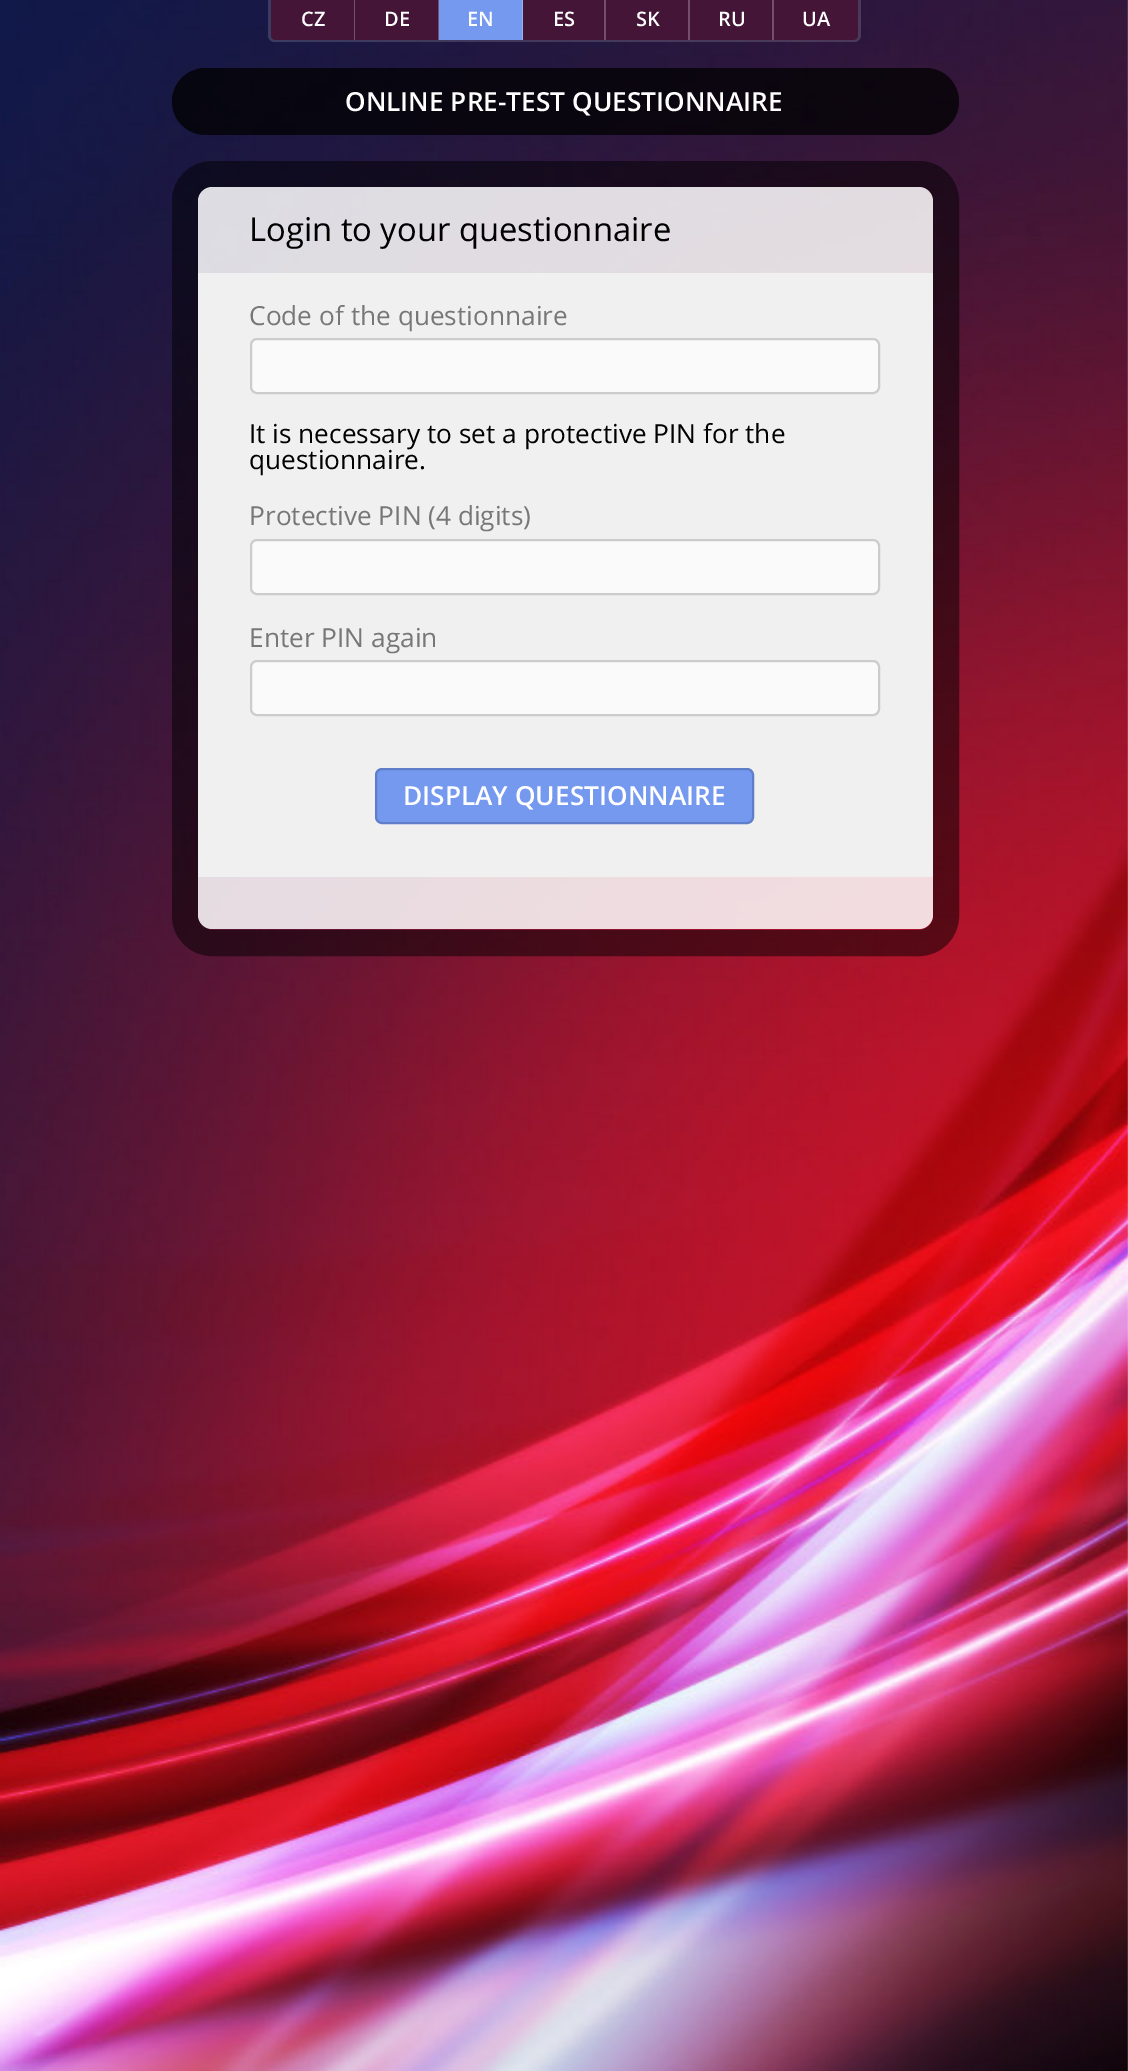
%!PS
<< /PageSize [1128 2071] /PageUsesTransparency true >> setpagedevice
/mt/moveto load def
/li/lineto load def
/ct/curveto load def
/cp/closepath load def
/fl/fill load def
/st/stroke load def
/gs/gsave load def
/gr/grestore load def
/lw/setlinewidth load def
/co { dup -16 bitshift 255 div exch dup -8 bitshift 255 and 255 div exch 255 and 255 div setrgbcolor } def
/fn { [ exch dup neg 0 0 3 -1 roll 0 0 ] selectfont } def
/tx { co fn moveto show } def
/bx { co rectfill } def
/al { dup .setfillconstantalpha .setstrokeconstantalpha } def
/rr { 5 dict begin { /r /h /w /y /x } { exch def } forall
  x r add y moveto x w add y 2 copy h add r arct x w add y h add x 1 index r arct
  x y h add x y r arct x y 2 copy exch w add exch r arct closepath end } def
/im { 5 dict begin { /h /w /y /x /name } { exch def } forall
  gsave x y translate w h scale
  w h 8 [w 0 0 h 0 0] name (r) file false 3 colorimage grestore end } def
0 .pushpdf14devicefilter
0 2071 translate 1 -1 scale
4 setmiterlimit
0 0 1128 2071 16#FFFFFF bx
(media/1.raw) 0 0 1128 2071 im
0.15 al
268 0 mt 861 0 li 861 35 li 861 39 858 42 854 42 ct 275 42 li 271 42 268 39 268 35 ct cp fl
1 al
16#441537 co
271 0 mt 355 0 li 355 40 li 276 40 li 273 40 271 38 271 35 ct cp fl
354 0 1 40 16#735069 bx
355 0 83 40 16#441537 bx
gs
355 0 84 40 rectclip
16#735069 co
182 -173 mt 612 -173 li 612 214 li 182 214 li cp 352 -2 mt 436 -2 li 437 -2 438 -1 438 0 ct 438 40 li 438 41 437 42 436 42 ct 352 42 li 351 42 350 41 350 40 ct 350 0 li 350 -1 351 -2 352 -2 ct cp eofill
gr
439 0 83 40 16#7599EF bx
gs
439 0 84 40 rectclip
16#98B3F3 co
266 -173 mt 696 -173 li 696 214 li 266 214 li cp 436 -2 mt 520 -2 li 521 -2 522 -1 522 0 ct 522 40 li 522 41 521 42 520 42 ct 436 42 li 435 42 434 41 434 40 ct 434 0 li 434 -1 435 -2 436 -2 ct cp eofill
gr
523 0 81 40 16#441537 bx
gs
523 0 83 40 rectclip
16#735069 co
350 -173 mt 779 -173 li 779 214 li 350 214 li cp 520 -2 mt 602 -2 li 603 -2 604 -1 604 0 ct 604 40 li 604 41 603 42 602 42 ct 520 42 li 519 42 518 41 518 40 ct 518 0 li 518 -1 519 -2 520 -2 ct cp eofill
gr
606 0 82 40 16#441537 bx
gs
606 0 84 40 rectclip
16#735069 co
432 -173 mt 863 -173 li 863 214 li 432 214 li cp 602 -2 mt 686 -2 li 687 -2 688 -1 688 0 ct 688 40 li 688 41 687 42 686 42 ct 602 42 li 601 42 600 41 600 40 ct 600 0 li 600 -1 601 -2 602 -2 ct cp eofill
gr
690 0 82 40 16#441537 bx
gs
690 0 84 40 rectclip
16#735069 co
516 -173 mt 947 -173 li 947 214 li 516 214 li cp 686 -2 mt 770 -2 li 771 -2 772 -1 772 0 ct 772 40 li 772 41 771 42 770 42 ct 686 42 li 685 42 684 41 684 40 ct 684 0 li 684 -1 685 -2 686 -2 ct cp eofill
gr
774 0 mt 858 0 li 858 35 li 858 38 856 40 853 40 ct 774 40 li cp fl
0.75 al
16#000000 co
172 68 787 67 33.5 rr fl
0.5 al
26 lw
185 174 761 769 27 rr st
0.85 al
16#FFFFFF co
212 187 mt 919 187 li 926.5 187 933 193.5 933 201 ct 933 273 li 198 273 li 198 201 li 198 193.5 204.5 187 212 187 ct cp fl
1 al
198 273 735 604 16#F0F0F0 bx
16#FAFAFA co
251 339 628 54 6 rr gs fl gr
16#CCCCCC co
2 lw
st
16#FAFAFA co
251 540 628 54 6 rr gs fl gr
16#CCCCCC co
st
16#FAFAFA co
251 661 628 54 6 rr gs fl gr
16#CCCCCC co
st
16#7599EF co
376 769 377 54 6 rr gs fl gr
16#5E7ECA co
st
0.85 al
16#FFFFFF co
198 877 mt 933 877 li 933 915 li 933 922.5 926.5 929 919 929 ct 212 929 li 204.5 929 198 922.5 198 915 ct cp fl
1 al
(CZ) 301 26 /OpenSans-SemiBold 20 16#FFFFFF tx
(DE) 384 26 /OpenSans-SemiBold 20 16#FFFFFF tx
(EN) 467 26 /OpenSans-SemiBold 20 16#FFFFFF tx
(ES) 553 26 /OpenSans-SemiBold 20 16#FFFFFF tx
(SK) 636 26 /OpenSans-SemiBold 20 16#FFFFFF tx
(RU) 718 26 /OpenSans-SemiBold 20 16#FFFFFF tx
(UA) 802 26 /OpenSans-SemiBold 20 16#FFFFFF tx
(ONLINE PRE-TEST QUESTIONNAIRE) 345 111 /OpenSans-SemiBold 26.25 16#FFFFFF tx
(Login to your questionnaire) 249 241 /OpenSans-Regular 32.75 16#000000 tx
(Code of the questionnaire) 249 325 /OpenSans-Regular 26.25 16#777777 tx
(It is necessary to set a protective PIN for the) 249 443 /OpenSans-Regular 26.25 16#000000 tx
(questionnaire.) 249 469 /OpenSans-Regular 26.25 16#000000 tx
(Protective PIN \(4 digits\)) 249 525 /OpenSans-Regular 26.25 16#777777 tx
(Enter PIN again) 249 647 /OpenSans-Regular 26.25 16#777777 tx
(DISPLAY QUESTIONNAIRE) 403 805 /OpenSans-SemiBold 26.25 16#FFFFFF tx
.poppdf14devicefilter showpage
